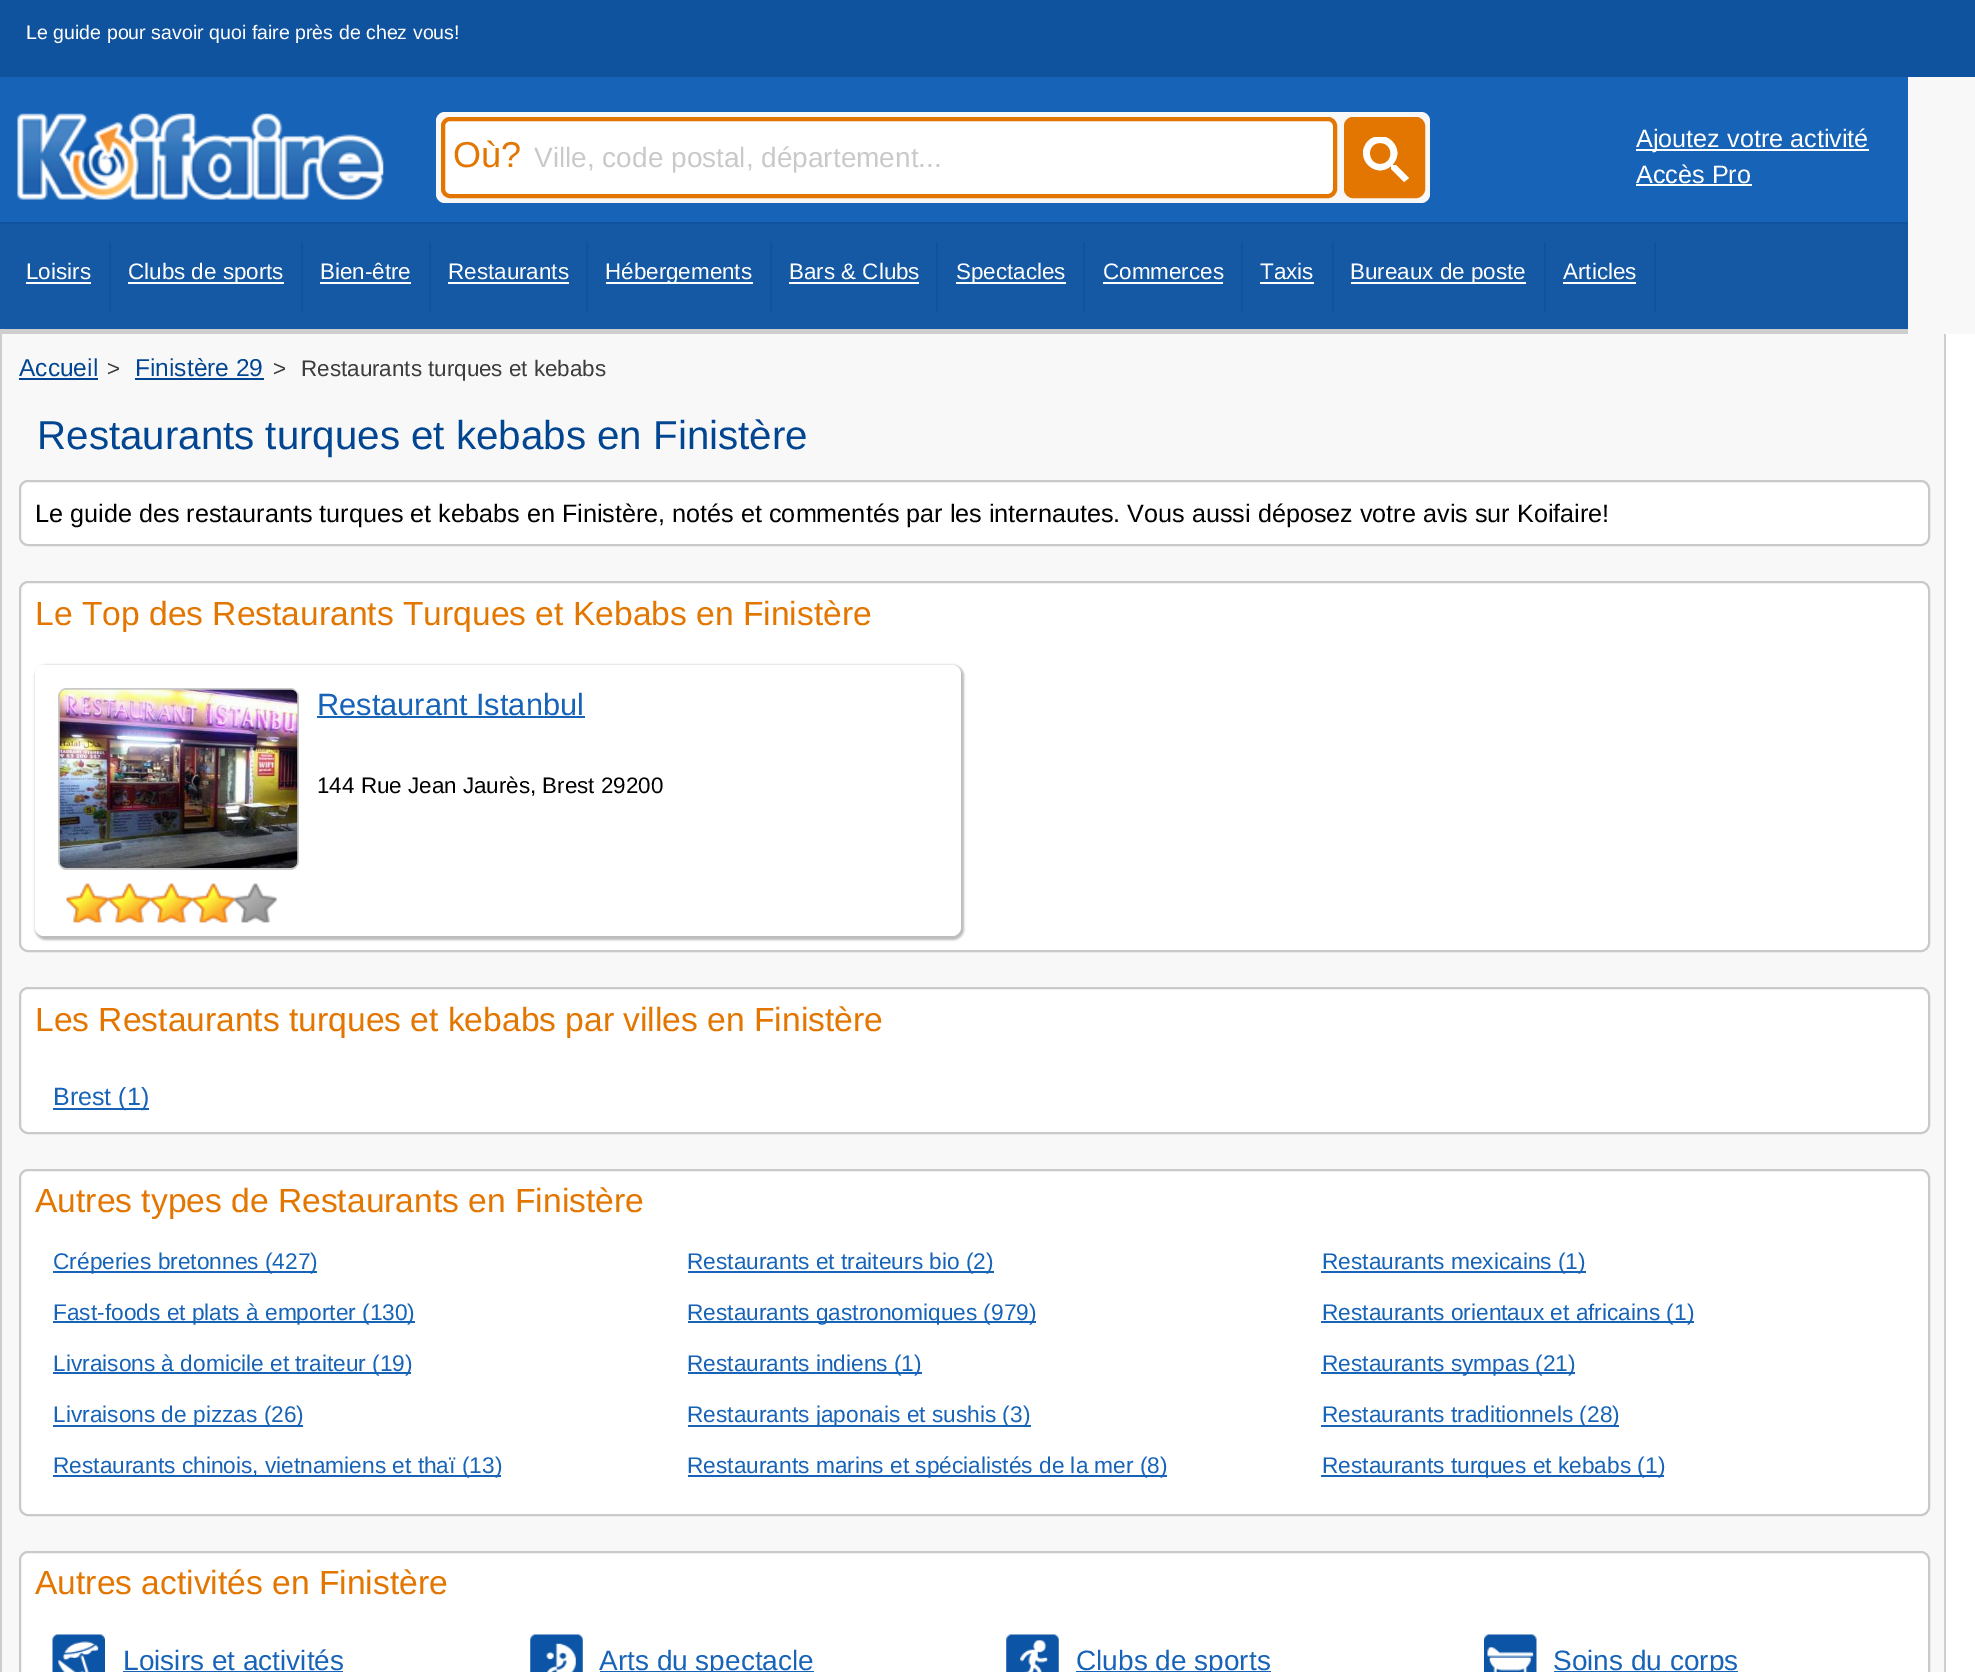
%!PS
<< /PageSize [1975 1672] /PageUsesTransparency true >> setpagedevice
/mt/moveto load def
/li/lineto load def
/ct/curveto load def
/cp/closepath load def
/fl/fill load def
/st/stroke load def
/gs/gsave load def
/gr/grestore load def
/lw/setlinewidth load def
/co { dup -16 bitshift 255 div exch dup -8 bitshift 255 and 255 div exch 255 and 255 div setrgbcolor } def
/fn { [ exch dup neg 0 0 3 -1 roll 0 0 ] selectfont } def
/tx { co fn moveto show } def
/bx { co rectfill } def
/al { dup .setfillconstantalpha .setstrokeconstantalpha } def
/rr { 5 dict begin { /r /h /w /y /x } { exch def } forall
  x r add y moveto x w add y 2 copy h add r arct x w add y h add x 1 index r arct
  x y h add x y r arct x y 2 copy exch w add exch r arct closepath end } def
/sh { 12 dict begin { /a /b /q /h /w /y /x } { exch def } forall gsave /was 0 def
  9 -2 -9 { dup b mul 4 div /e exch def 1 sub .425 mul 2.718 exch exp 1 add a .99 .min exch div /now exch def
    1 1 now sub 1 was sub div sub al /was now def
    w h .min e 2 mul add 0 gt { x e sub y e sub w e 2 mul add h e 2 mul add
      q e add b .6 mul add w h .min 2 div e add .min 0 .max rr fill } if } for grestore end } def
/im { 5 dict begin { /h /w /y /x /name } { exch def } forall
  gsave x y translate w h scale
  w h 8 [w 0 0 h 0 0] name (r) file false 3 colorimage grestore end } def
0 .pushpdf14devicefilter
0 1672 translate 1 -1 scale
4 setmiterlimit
0 0 1975 1672 16#F9F8F8 bx
0 0 1975 77 16#0F529D bx
0 77 1908 145 16#1763B8 bx
(media/1.raw) 17 113 367 87 im
16#F9F8F8 co
436 112 994 91 9 rr fl
16#FFFFFF co
443 119 892 77 7 rr gs fl gr
16#E37601 co
4 lw
st
1346 119 77 77 7 rr gs fl gr
st
gs
1363 137 88 85 rectclip
16#FFFFFF co
1380 164 mt 1394 164 1394 143 1380 143 ct 1366 143 1367 164 1380 164 ct cp 1396 165 mt 1409 178 li 1404 182 li 1391 169 li 1391 166 li 1375 180 1353 157 1368 141 ct 1384 126 1407 148 1393 164 ct 1393 165 li cp fl
gr
1636 149 233 2 16#FFFFFF bx
1636 184 116 2 16#FFFFFF bx
0 224 1908 105 16#1559A5 bx
0 222 1908 2 16#0F529D bx
0 329 1908 5 16#CECECE bx
109 242 2 70 16#0F529D bx
26 282 65 2 16#FFFFFF bx
301 242 2 70 16#0F529D bx
128 282 156 2 16#FFFFFF bx
429 242 2 70 16#0F529D bx
320 282 91 2 16#FFFFFF bx
586 242 2 70 16#0F529D bx
448 282 121 2 16#FFFFFF bx
770 242 2 70 16#0F529D bx
606 282 147 2 16#FFFFFF bx
936 242 2 70 16#0F529D bx
789 282 130 2 16#FFFFFF bx
1083 242 2 70 16#0F529D bx
956 282 110 2 16#FFFFFF bx
1241 242 2 70 16#0F529D bx
1103 282 120 2 16#FFFFFF bx
1332 242 2 70 16#0F529D bx
1260 282 54 2 16#FFFFFF bx
1544 242 2 70 16#0F529D bx
1351 282 175 2 16#FFFFFF bx
1654 242 2 70 16#0F529D bx
1563 282 73 2 16#FFFFFF bx
1946 334 29 1338 16#FFFFFF bx
1944 334 2 1338 16#CECECE bx
0 334 2 1338 16#CECECE bx
19 378 79 2 16#024691 bx
135 378 129 2 16#024691 bx
16#FFFFFF co
20 481 1909 64 8 rr gs fl gr
16#C9C9C9 co
2 lw
st
16#FFFFFF co
20 582 1909 369 8 rr gs fl gr
16#C9C9C9 co
st
16#BBBBBB co
35 665 929 275 11 1 1 sh
16#FFFFFF co
35 665 926 271 9 rr fl
16#C9C9C9 co
67 688 mt 290 688 li 295 688 299 692 299 697 ct 299 861 li 299 866 295 870 290 870 ct 67 870 li 62 870 58 866 58 861 ct 58 697 li 58 692 62 688 67 688 ct cp fl
(media/2.raw) 59 689 239 179 im
(media/3.raw) 66 883 43 40 im
(media/4.raw) 108 883 43 40 im
(media/4.raw) 150 883 43 40 im
(media/4.raw) 192 883 43 40 im
(media/5.raw) 234 883 43 40 im
317 716 268 2 16#1763B8 bx
16#FFFFFF co
20 988 1909 145 8 rr gs fl gr
16#C9C9C9 co
st
53 1108 96 2 16#1763B8 bx
16#FFFFFF co
20 1170 1909 345 8 rr gs fl gr
16#C9C9C9 co
st
53 1271 264 2 16#1763B8 bx
688 1271 306 2 16#1763B8 bx
1321 1271 265 2 16#1763B8 bx
53 1321 362 2 16#1763B8 bx
688 1321 348 2 16#1763B8 bx
1321 1321 373 2 16#1763B8 bx
53 1372 358 2 16#1763B8 bx
688 1372 234 2 16#1763B8 bx
1321 1372 254 2 16#1763B8 bx
53 1425 250 2 16#1763B8 bx
688 1425 343 2 16#1763B8 bx
1321 1425 298 2 16#1763B8 bx
53 1475 448 2 16#1763B8 bx
688 1475 479 2 16#1763B8 bx
1321 1475 343 2 16#1763B8 bx
16#FFFFFF co
20 1552 1909 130 8 rr gs fl gr
16#C9C9C9 co
st
(media/6.raw) 52 1634 53 38 im
123 1671 220 1 16#1763B8 bx
(media/7.raw) 530 1634 53 38 im
600 1671 214 1 16#1763B8 bx
(media/8.raw) 1006 1634 53 38 im
1076 1671 195 1 16#1763B8 bx
(media/9.raw) 1484 1634 53 38 im
1554 1671 184 1 16#1763B8 bx
(Le guide pour savoir quoi faire près de chez vous!) 26 39 /LiberationSans-Regular 19.6 16#FFFFFF tx
(Où?) 453 167 /LiberationSans-Regular 36 16#E37601 tx
(Ville, code postal, département...) 534 167 /LiberationSans-Regular 28 16#C9C9C9 tx
(Ajoutez votre activité) 1636 147 /LiberationSans-Regular 25.2 16#FFFFFF tx
(Accès Pro) 1636 183 /LiberationSans-Regular 25.2 16#FFFFFF tx
(Loisirs) 26 279 /LiberationSans-Regular 22.4 16#FFFFFF tx
(Clubs de sports) 128 279 /LiberationSans-Regular 22.4 16#FFFFFF tx
(Bien-être) 320 279 /LiberationSans-Regular 22.4 16#FFFFFF tx
(Restaurants) 448 279 /LiberationSans-Regular 22.4 16#FFFFFF tx
(Hébergements) 605 279 /LiberationSans-Regular 22.4 16#FFFFFF tx
(Bars & Clubs) 789 279 /LiberationSans-Regular 22.4 16#FFFFFF tx
(Spectacles) 956 279 /LiberationSans-Regular 22.4 16#FFFFFF tx
(Commerces) 1103 279 /LiberationSans-Regular 22.4 16#FFFFFF tx
(Taxis) 1260 279 /LiberationSans-Regular 22.4 16#FFFFFF tx
(Bureaux de poste) 1350 279 /LiberationSans-Regular 22.4 16#FFFFFF tx
(Articles) 1563 279 /LiberationSans-Regular 22.4 16#FFFFFF tx
(Accueil) 19 376 /LiberationSans-Regular 24.5 16#024691 tx
(>) 107 376 /LiberationSans-Regular 22.4 16#3D3D3D tx
(Finistère 29) 135 376 /LiberationSans-Regular 24.5 16#024691 tx
(>) 273 376 /LiberationSans-Regular 22.4 16#3D3D3D tx
(Restaurants turques et kebabs) 301 376 /LiberationSans-Regular 22.4 16#3D3D3D tx
(Restaurants turques et kebabs en Finistère) 37 449 /LiberationSans-Regular 40.3 16#024691 tx
(Le guide des restaurants turques et kebabs en Finistère, notés et commentés par les internautes. Vous aussi déposez votre avis sur Koifaire!) 35 522 /LiberationSans-Regular 25.2 16#000000 tx
(Le Top des Restaurants Turques et Kebabs en Finistère) 35 625 /LiberationSans-Regular 33.6 16#E37601 tx
(Restaurant Istanbul) 317 715 /LiberationSans-Regular 30.75 16#1763B8 tx
(144 Rue Jean Jaurès, Brest 29200) 317 793 /LiberationSans-Regular 22.4 16#000000 tx
(Les Restaurants turques et kebabs par villes en Finistère) 35 1031 /LiberationSans-Regular 33.6 16#E37601 tx
(Brest \(1\)) 53 1105 /LiberationSans-Regular 25 16#1763B8 tx
(Autres types de Restaurants en Finistère) 35 1212 /LiberationSans-Regular 33.6 16#E37601 tx
(Créperies bretonnes \(427\)) 53 1269 /LiberationSans-Regular 22.7 16#1763B8 tx
(Restaurants et traiteurs bio \(2\)) 687 1269 /LiberationSans-Regular 22.7 16#1763B8 tx
(Restaurants mexicains \(1\)) 1322 1269 /LiberationSans-Regular 22.7 16#1763B8 tx
(Fast-foods et plats à emporter \(130\)) 53 1320 /LiberationSans-Regular 22.7 16#1763B8 tx
(Restaurants gastronomiques \(979\)) 687 1320 /LiberationSans-Regular 22.7 16#1763B8 tx
(Restaurants orientaux et africains \(1\)) 1322 1320 /LiberationSans-Regular 22.7 16#1763B8 tx
(Livraisons à domicile et traiteur \(19\)) 53 1371 /LiberationSans-Regular 22.7 16#1763B8 tx
(Restaurants indiens \(1\)) 687 1371 /LiberationSans-Regular 22.7 16#1763B8 tx
(Restaurants sympas \(21\)) 1322 1371 /LiberationSans-Regular 22.7 16#1763B8 tx
(Livraisons de pizzas \(26\)) 53 1422 /LiberationSans-Regular 22.7 16#1763B8 tx
(Restaurants japonais et sushis \(3\)) 687 1422 /LiberationSans-Regular 22.7 16#1763B8 tx
(Restaurants traditionnels \(28\)) 1322 1422 /LiberationSans-Regular 22.7 16#1763B8 tx
(Restaurants chinois, vietnamiens et thaï \(13\)) 53 1473 /LiberationSans-Regular 22.7 16#1763B8 tx
(Restaurants marins et spécialistés de la mer \(8\)) 687 1473 /LiberationSans-Regular 22.7 16#1763B8 tx
(Restaurants turques et kebabs \(1\)) 1322 1473 /LiberationSans-Regular 22.7 16#1763B8 tx
(Autres activités en Finistère) 35 1594 /LiberationSans-Regular 33.6 16#E37601 tx
(Loisirs et activités) 123 1670 /LiberationSans-Regular 28 16#1763B8 tx
(Arts du spectacle) 599 1670 /LiberationSans-Regular 28 16#1763B8 tx
(Clubs de sports) 1076 1670 /LiberationSans-Regular 28 16#1763B8 tx
(Soins du corps) 1553 1670 /LiberationSans-Regular 28 16#1763B8 tx
.poppdf14devicefilter showpage
